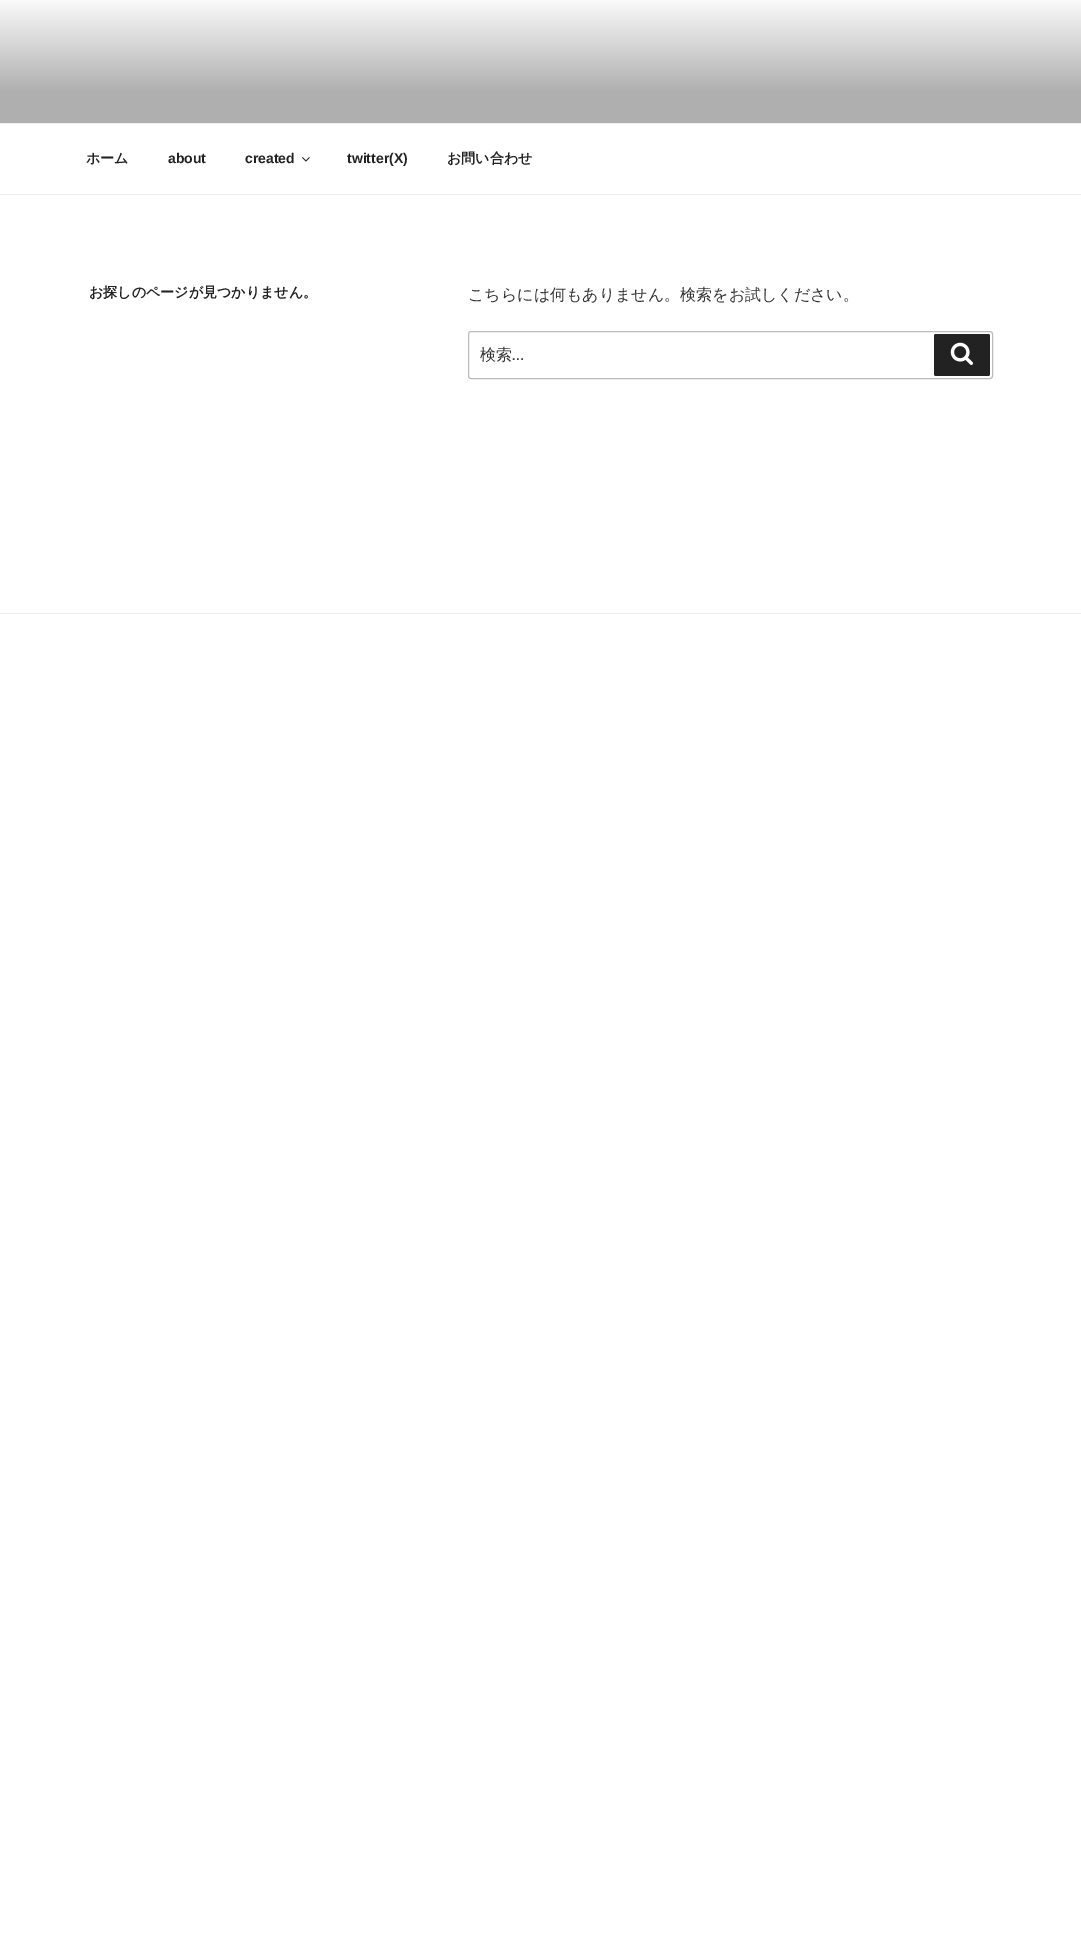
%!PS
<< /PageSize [1081 1949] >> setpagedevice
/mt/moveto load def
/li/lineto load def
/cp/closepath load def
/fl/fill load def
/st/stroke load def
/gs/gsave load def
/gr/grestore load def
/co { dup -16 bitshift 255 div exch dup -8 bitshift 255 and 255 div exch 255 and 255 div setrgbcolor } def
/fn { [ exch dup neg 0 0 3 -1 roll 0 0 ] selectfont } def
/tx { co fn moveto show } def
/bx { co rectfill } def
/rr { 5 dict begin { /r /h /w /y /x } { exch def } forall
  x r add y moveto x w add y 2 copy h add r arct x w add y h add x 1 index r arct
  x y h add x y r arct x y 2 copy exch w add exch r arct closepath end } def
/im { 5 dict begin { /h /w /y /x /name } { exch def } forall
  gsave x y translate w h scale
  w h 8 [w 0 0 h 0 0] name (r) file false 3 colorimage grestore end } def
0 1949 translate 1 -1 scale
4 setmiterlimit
0 0 1081 1949 16#FFFFFF bx
gs 0 0 mt 1081 0 li 1081 123 li 0 123 li cp clip newpath
<< /ShadingType 2 /ColorSpace /DeviceRGB /Coords [541 0 541 123] /Extend [true true] /Function << /FunctionType 3 /Domain [0 1] /Functions [<< /FunctionType 2 /Domain [0 1] /C0 [.98 .98 .98] /C1 [.686 .686 .686] /N 1 >> << /FunctionType 2 /Domain [0 1] /C0 [.686 .686 .686] /C1 [.686 .686 .686] /N 1 >>] /Bounds [.75] /Encode [0 1 0 1] >> >> shfill gr
0 123 1081 1 16#EEEEEE bx
0 194 1081 1 16#EEEEEE bx
(media/1.raw) 302 157 8 5 im
16#BBBBBB co
468.5 331.5 524 47 2.5 rr st
16#222222 co
934 334 56 42 2 rr fl
(media/2.raw) 950 342 23 23 im
0 613 1081 1 16#EEEEEE bx
(ホーム) 86 163 /WenQuanYiZenHei-Bold 14 16#222222 tx
(about) 168 163 /LiberationSans-Bold 14 16#222222 tx
(created) 245 163 /LiberationSans-Bold 14 16#222222 tx
(twitter\(X\)) 347 163 /LiberationSans-Bold 14 16#222222 tx
(お問い合わせ) 447 163 /WenQuanYiZenHei-Bold 14 16#222222 tx
(お探しのページが見つかりません。) 89 297 /WenQuanYiZenHei-Bold 14 16#222222 tx
(こちらには何もありません。検索をお試しください。) 468 300 /WenQuanYiZenHei-Medium 16 16#333333 tx
(検索) 480 360 /WenQuanYiZenHei-Medium 16 16#333333 tx
(…) 512 360 /LibreFranklin-Regular 16 16#333333 tx
showpage
